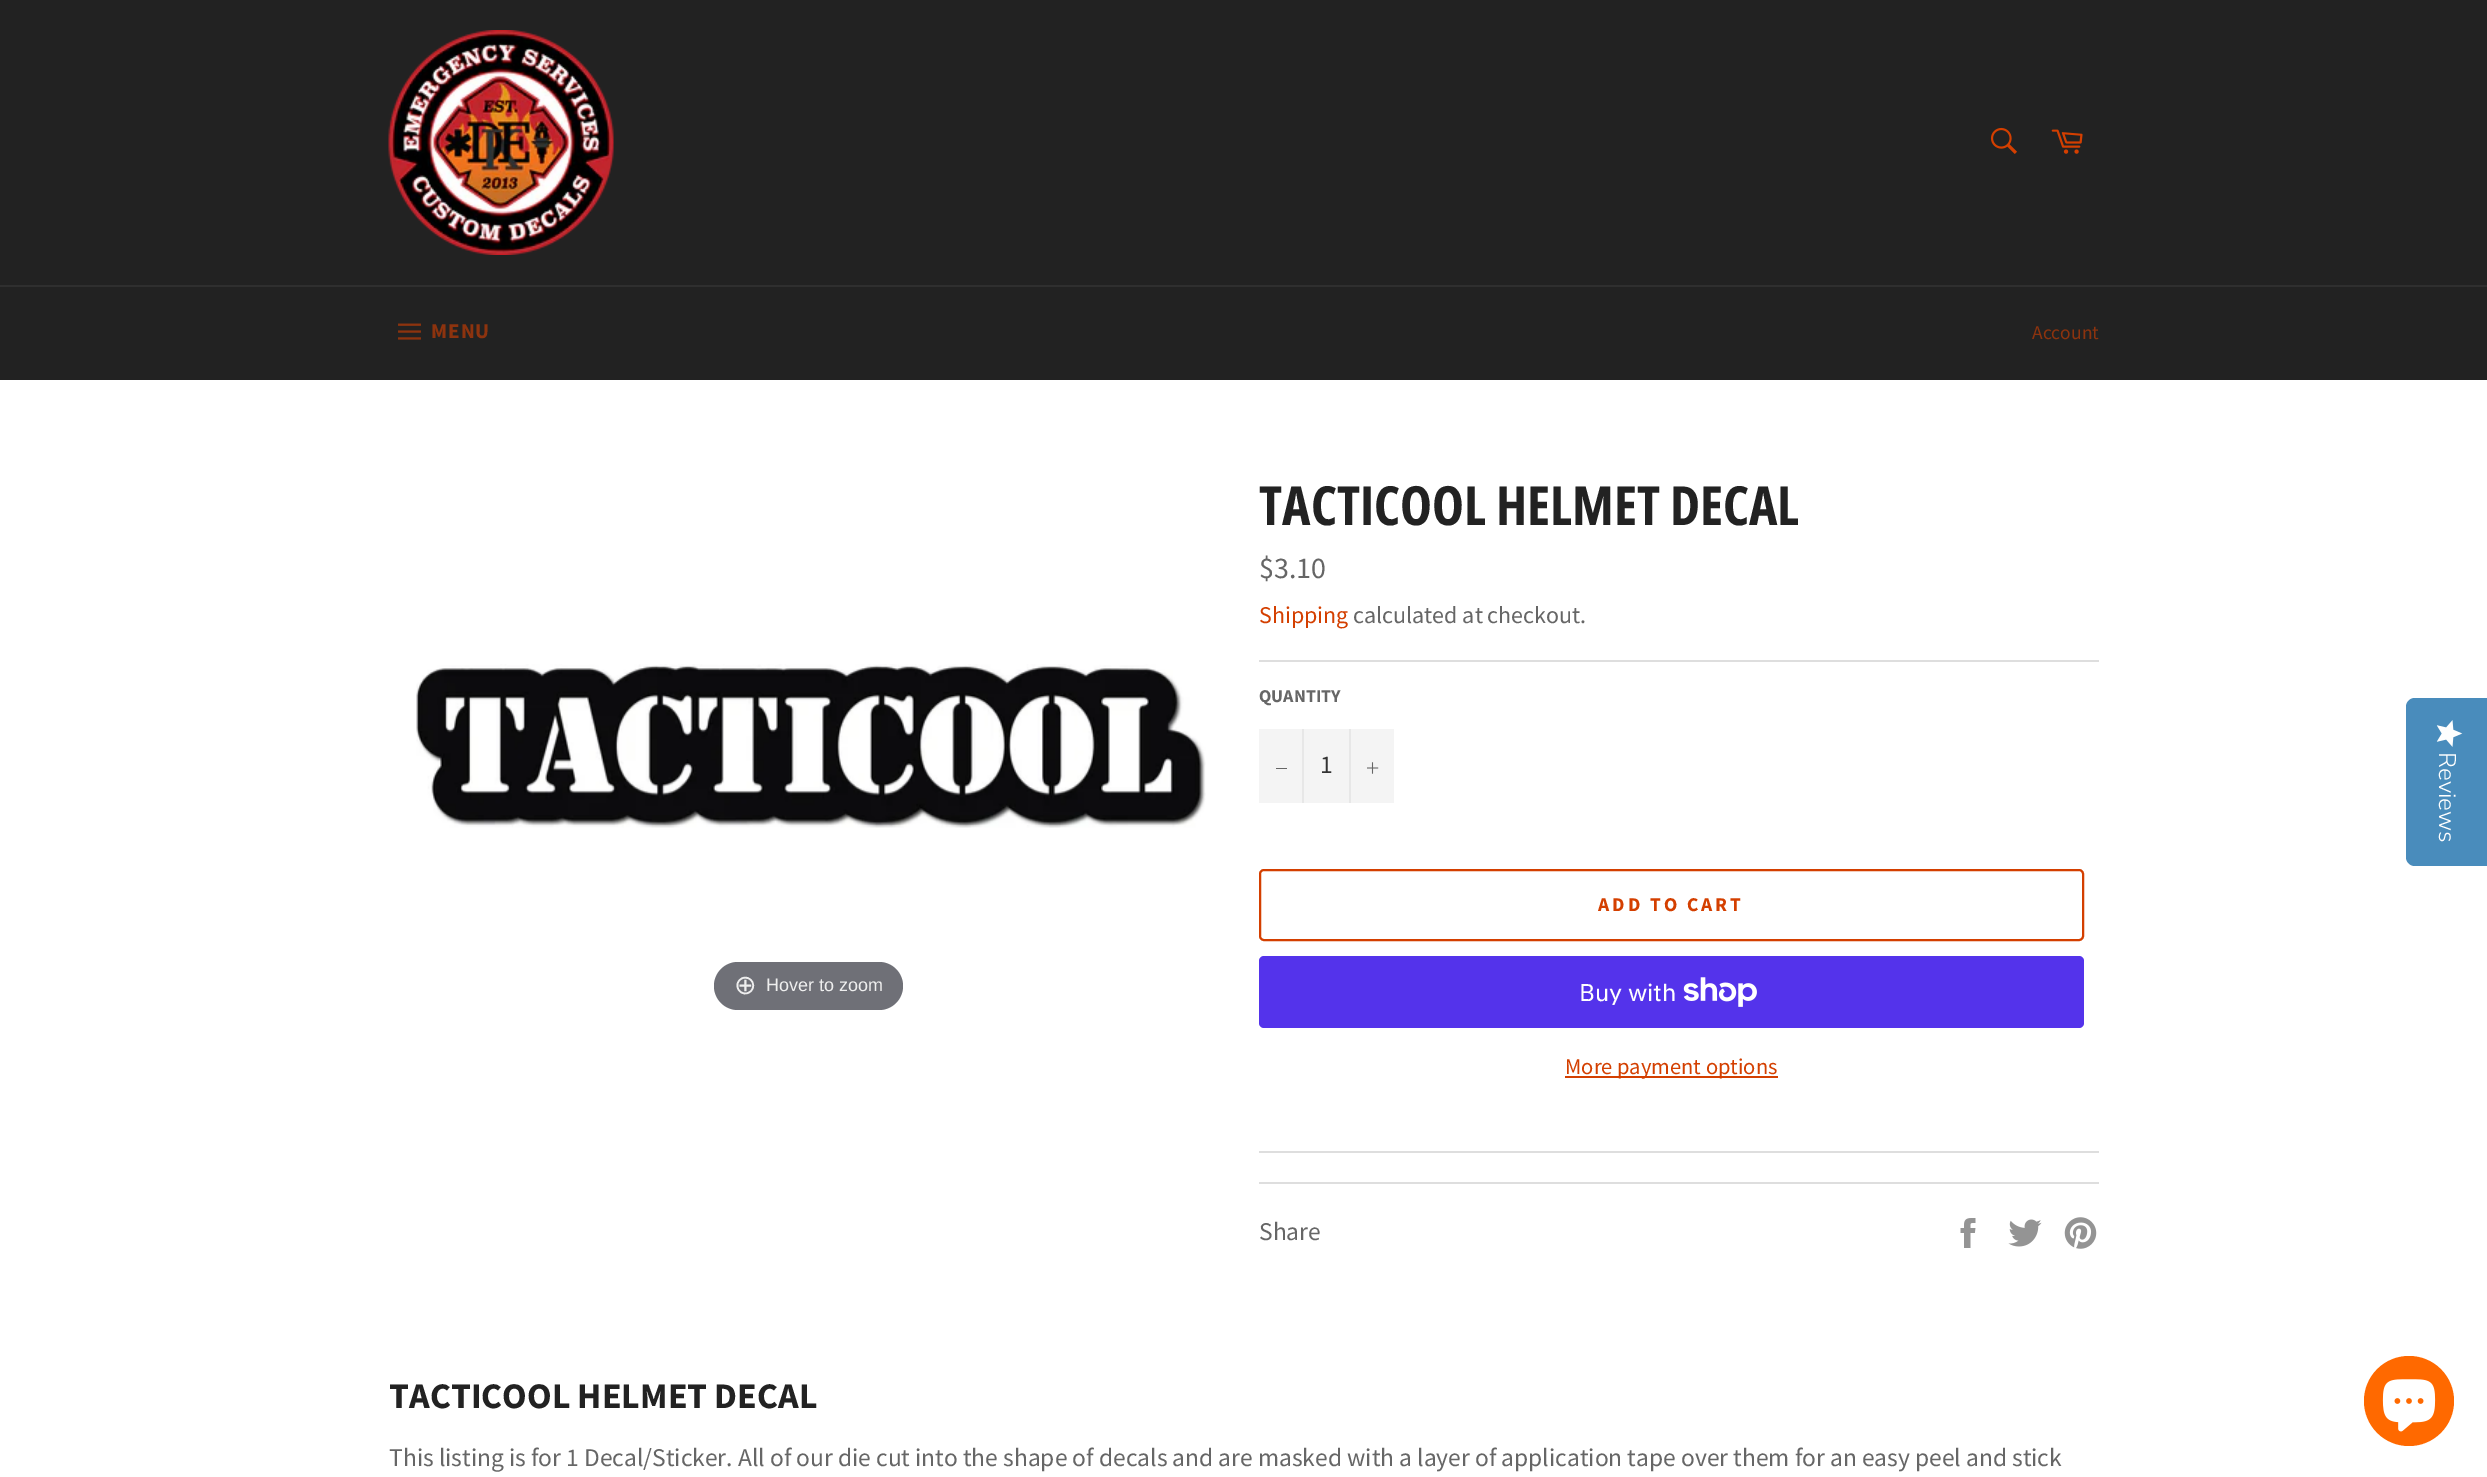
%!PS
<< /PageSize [2487 1477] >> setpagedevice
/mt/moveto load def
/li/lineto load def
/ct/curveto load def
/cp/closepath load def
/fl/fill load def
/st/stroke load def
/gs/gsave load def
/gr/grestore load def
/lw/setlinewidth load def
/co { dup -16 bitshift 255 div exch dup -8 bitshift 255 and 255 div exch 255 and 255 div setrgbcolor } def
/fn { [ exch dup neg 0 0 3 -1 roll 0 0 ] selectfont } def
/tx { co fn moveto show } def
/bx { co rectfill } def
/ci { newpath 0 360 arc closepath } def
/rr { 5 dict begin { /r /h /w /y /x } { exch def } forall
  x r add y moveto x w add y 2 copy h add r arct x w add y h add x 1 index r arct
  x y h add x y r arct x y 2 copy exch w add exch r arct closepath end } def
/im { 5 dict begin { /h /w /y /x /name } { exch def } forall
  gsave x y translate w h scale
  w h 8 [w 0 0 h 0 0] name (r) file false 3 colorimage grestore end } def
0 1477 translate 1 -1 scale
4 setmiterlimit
0 0 2487 1477 16#222222 bx
(media/1.raw) 388 30 226 225 im
(media/2.raw) 1990 127 27 27 im
(media/3.raw) 2051 129 32 25 im
0 285 2487 2 16#2F2F2F bx
(media/4.raw) 398 323 23 17 im
0 380 2487 1097 16#FFFFFF bx
(media/5.raw) 416 664 790 164 im
16#6F7077 co
714 962 189 48 24 rr fl
1259 660 840 2 16#DEDEDE bx
1259 729 135 74 16#F4F4F4 bx
1302 729 2 74 16#E7E7E7 bx
1276 768 11 1 16#666666 bx
1349 729 2 74 16#E7E7E7 bx
(media/6.raw) 1367 762 12 12 im
16#D43F00 co
2 lw
1260 870 823 70 4 rr st
16#5433EB co
1259 956 825 72 5 rr fl
(media/7.raw) 1683 977 74 30 im
1565 1076 213 2 16#D43F00 bx
1259 1151 840 2 16#DEDEDE bx
1259 1182 840 2 16#DEDEDE bx
(media/8.raw) 1960 1218 16 30 im
(media/9.raw) 2008 1219 34 28 im
(media/10.raw) 2064 1217 33 32 im
16#498CBC co
2487 698 mt 2487 866 li 2415 866 li 2410 866 2406 862 2406 857 ct 2406 707 li 2406 702 2410 698 2415 698 ct cp fl
(media/11.raw) 2436 720 27 27 im
16#FF6900 co
2409 1401 45 ci fl
(media/12.raw) 2382 1379 54 53 im
/SourceSansPro-Bold 21 fn
16#8D330E co
431 338 mt 1 0 (MENU) ashow
(Account) 2032 339 /SourceSansPro-Regular 19.5 16#8D330E tx
(⊕) 734 994 /DejaVuSans-Regular 27 16#EEEEEE tx
(Hover to zoom) 766 991 /LiberationSans-Regular 18 16#EEEEEE tx
(TACTICOOL HELMET DECAL) 1259 525 /OpenSansCondensed-Bold 54 16#222222 tx
($3.10) 1259 578 /SourceSansPro-Regular 30 16#666666 tx
(Shipping) 1259 623 /SourceSansPro-Regular 24 16#D43F00 tx
(calculated at checkout.) 1353 623 /SourceSansPro-Regular 24 16#666666 tx
(QUANTITY) 1259 702 /SourceSansPro-Bold 18 16#666666 tx
(1) 1320 773 /SourceSansPro-Regular 25.5 16#333333 tx
/SourceSansPro-Bold 19.5 fn
16#D43F00 co
1598 911 mt 3 0 (ADD TO CART) ashow
(Buy with) 1579 1001 /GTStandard-Regular 24 16#FFFFFF tx
(More payment options) 1565 1074 /SourceSansPro-Regular 22.5 16#D43F00 tx
(Share) 1259 1240 /SourceSansPro-Regular 25.5 16#666666 tx
(TACTICOOL HELMET DECAL) 389 1408 /SourceSansPro-Bold 36 16#222222 tx
(This listing is for 1 Decal/Sticker. All of our die cut into the shape of decals and are masked with a layer of application tape over them for an easy peel and stick) 389 1466 /SourceSansPro-Regular 25.5 16#666666 tx
/NunitoSans-Light 24 fn
16#FFFFFF co
gs 2439 752 translate 90 rotate 0 0 mt (Reviews) show gr
showpage
